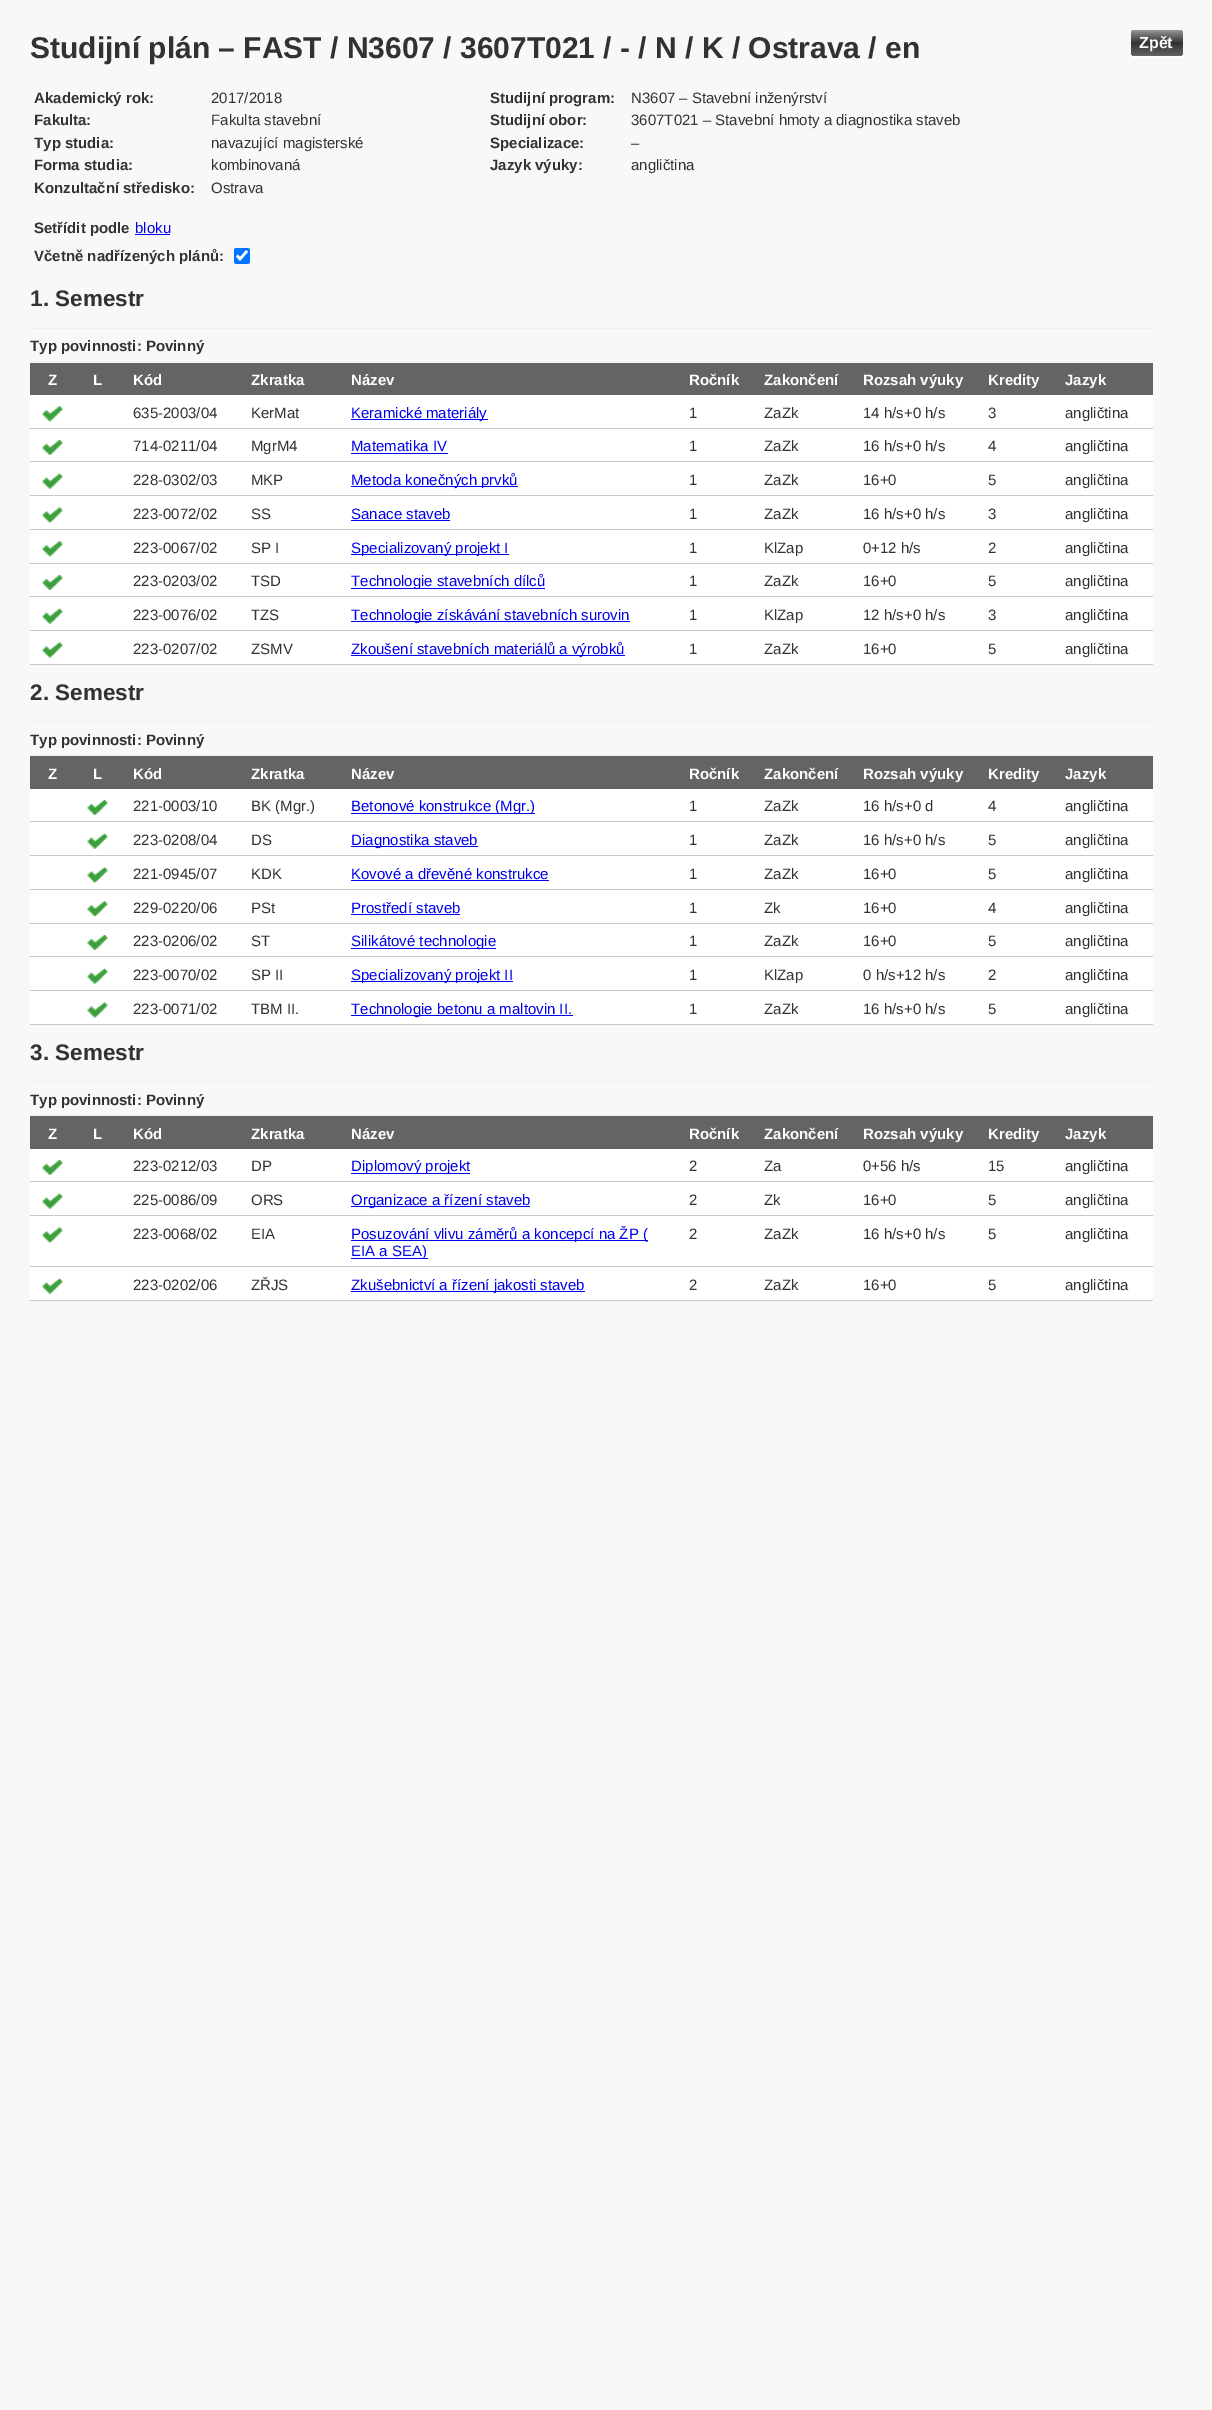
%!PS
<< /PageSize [1212 2410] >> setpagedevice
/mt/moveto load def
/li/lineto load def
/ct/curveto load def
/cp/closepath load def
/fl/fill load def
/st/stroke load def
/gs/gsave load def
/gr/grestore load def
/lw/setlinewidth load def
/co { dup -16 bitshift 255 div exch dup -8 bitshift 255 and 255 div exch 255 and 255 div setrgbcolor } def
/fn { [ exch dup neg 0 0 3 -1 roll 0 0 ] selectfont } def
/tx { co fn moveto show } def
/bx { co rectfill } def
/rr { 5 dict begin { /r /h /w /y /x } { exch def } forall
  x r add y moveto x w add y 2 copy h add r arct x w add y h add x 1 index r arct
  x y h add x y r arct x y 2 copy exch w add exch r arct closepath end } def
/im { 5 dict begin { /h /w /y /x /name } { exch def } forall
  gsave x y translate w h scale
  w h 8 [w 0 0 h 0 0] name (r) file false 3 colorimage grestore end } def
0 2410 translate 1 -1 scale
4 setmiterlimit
0 0 1212 2410 16#F8F8F8 bx
135 234 35 1 16#0000EE bx
16#0075FF co
234 248 16 16 2.5 rr fl
16#FFFFFF co
2.6 lw
237 255.5 mt 240 259 li 247 251 li st
30 328 1123 1 16#F0F0F0 bx
30 361 1123 1 16#F0F0F0 bx
30 363 1123 32 16#646464 bx
30 395 1123 33 16#FFFFFF bx
(media/1.raw) 42 406 21 16 im
351 419 137 1 16#0000EE bx
30 428 1123 1 16#C8C8C8 bx
30 429 1123 66 16#FFFFFF bx
(media/2.raw) 42 440 21 15 im
351 453 97 1 16#0000EE bx
30 461 1123 1 16#C8C8C8 bx
(media/3.raw) 42 473 21 16 im
351 486 167 1 16#0000EE bx
30 495 1123 1 16#C8C8C8 bx
30 496 1123 33 16#FFFFFF bx
(media/4.raw) 42 507 21 16 im
351 520 99 1 16#0000EE bx
30 529 1123 1 16#C8C8C8 bx
30 530 1123 33 16#FFFFFF bx
(media/1.raw) 42 541 21 16 im
351 554 158 1 16#0000EE bx
30 563 1123 1 16#C8C8C8 bx
30 564 1123 66 16#FFFFFF bx
(media/2.raw) 42 575 21 15 im
351 588 194 1 16#0000EE bx
30 596 1123 1 16#C8C8C8 bx
(media/3.raw) 42 608 21 16 im
351 621 279 1 16#0000EE bx
30 630 1123 1 16#C8C8C8 bx
30 631 1123 33 16#FFFFFF bx
(media/4.raw) 42 642 21 16 im
351 655 274 1 16#0000EE bx
30 664 1123 1 16#C8C8C8 bx
30 721 1123 1 16#F0F0F0 bx
30 755 1123 1 16#F0F0F0 bx
30 756 1123 33 16#646464 bx
30 789 1123 66 16#FFFFFF bx
(media/5.raw) 87 800 21 15 im
351 813 184 1 16#0000EE bx
30 821 1123 1 16#C8C8C8 bx
(media/6.raw) 87 833 21 16 im
351 846 127 1 16#0000EE bx
30 855 1123 1 16#C8C8C8 bx
30 856 1123 33 16#FFFFFF bx
(media/7.raw) 87 867 21 16 im
351 880 198 1 16#0000EE bx
30 889 1123 1 16#C8C8C8 bx
30 890 1123 33 16#FFFFFF bx
(media/8.raw) 87 901 21 16 im
351 914 109 1 16#0000EE bx
30 923 1123 1 16#C8C8C8 bx
30 924 1123 66 16#FFFFFF bx
(media/5.raw) 87 935 21 15 im
351 948 145 1 16#0000EE bx
30 956 1123 1 16#C8C8C8 bx
(media/6.raw) 87 968 21 16 im
351 981 162 1 16#0000EE bx
30 990 1123 1 16#C8C8C8 bx
30 991 1123 33 16#FFFFFF bx
(media/7.raw) 87 1002 21 16 im
351 1015 222 1 16#0000EE bx
30 1024 1123 1 16#C8C8C8 bx
30 1081 1123 1 16#F0F0F0 bx
30 1115 1123 1 16#F0F0F0 bx
30 1116 1123 33 16#646464 bx
30 1149 1123 66 16#FFFFFF bx
(media/2.raw) 42 1160 21 15 im
351 1173 119 1 16#0000EE bx
30 1181 1123 1 16#C8C8C8 bx
(media/3.raw) 42 1193 21 16 im
351 1206 179 1 16#0000EE bx
30 1215 1123 1 16#C8C8C8 bx
30 1216 1123 84 16#FFFFFF bx
(media/4.raw) 42 1227 21 16 im
351 1240 297 1 16#0000EE bx
351 1258 77 1 16#0000EE bx
30 1266 1123 1 16#C8C8C8 bx
(media/3.raw) 42 1278 21 16 im
351 1291 234 1 16#0000EE bx
30 1300 1123 1 16#C8C8C8 bx
16#FFFFFF co
1131 34 mt 1131 48 li 1131 59 1131 58 1142 58 ct 1172 58 li 1183 58 1183 59 1183 48 ct 1183 44 1184 36 1182 33 ct 1182 46 li 1182 57 1183 56 1171 56 ct 1142 56 li 1131 56 1131 57 1131 46 ct cp fl
gs 1131 30 52 26 4 rr clip newpath
<< /ShadingType 2 /ColorSpace /DeviceRGB /Coords [1157 30 1157 56] /Extend [true true] /Function << /FunctionType 3 /Domain [0 1] /Functions [<< /FunctionType 2 /Domain [0 1] /C0 [.588 .588 .588] /C1 [.196 .196 .196] /N 1 >> << /FunctionType 2 /Domain [0 1] /C0 [.196 .196 .196] /C1 [.392 .392 .392] /N 1 >>] /Bounds [.5] /Encode [0 1 0 1] >> >> shfill gr
(Studijní plán – FAST / N3607 / 3607T021 / - / N / K / Ostrava / en) 30 58 /LiberationSans-Bold 30 16#323232 tx
(Akademický rok:) 34 103 /LiberationSans-Bold 15 16#323232 tx
(2017/2018) 211 103 /LiberationSans-Regular 15 16#323232 tx
(Studijní program:) 490 103 /LiberationSans-Bold 15 16#323232 tx
(N3607 – Stavební inženýrství) 631 103 /LiberationSans-Regular 15 16#323232 tx
(Fakulta:) 34 125 /LiberationSans-Bold 15 16#323232 tx
(Fakulta stavební) 211 125 /LiberationSans-Regular 15 16#323232 tx
(Studijní obor:) 490 125 /LiberationSans-Bold 15 16#323232 tx
(3607T021 – Stavební hmoty a diagnostika staveb) 631 125 /LiberationSans-Regular 15 16#323232 tx
(Typ studia:) 34 148 /LiberationSans-Bold 15 16#323232 tx
(navazující magisterské) 211 148 /LiberationSans-Regular 15 16#323232 tx
(Specializace:) 490 148 /LiberationSans-Bold 15 16#323232 tx
(–) 631 148 /LiberationSans-Regular 15 16#323232 tx
(Forma studia:) 34 170 /LiberationSans-Bold 15 16#323232 tx
(kombinovaná) 211 170 /LiberationSans-Regular 15 16#323232 tx
(Jazyk výuky:) 490 170 /LiberationSans-Bold 15 16#323232 tx
(angličtina) 631 170 /LiberationSans-Regular 15 16#323232 tx
(Konzultační středisko:) 34 193 /LiberationSans-Bold 15 16#323232 tx
(Ostrava) 211 193 /LiberationSans-Regular 15 16#323232 tx
(Setřídit podle) 34 233 /LiberationSans-Bold 15 16#323232 tx
(bloku) 135 233 /LiberationSans-Regular 15 16#0000EE tx
(Včetně nadřízených plánů:) 34 261 /LiberationSans-Bold 15 16#323232 tx
(1. Semestr) 30 306 /LiberationSans-Bold 22.5 16#323232 tx
(Typ povinnosti: Povinný) 30 351 /LiberationSans-Bold 15 16#323232 tx
(Z) 48 385 /LiberationSans-Bold 15 16#FFFFFF tx
(L) 93 385 /LiberationSans-Bold 15 16#FFFFFF tx
(Kód) 133 385 /LiberationSans-Bold 15 16#FFFFFF tx
(Zkratka) 251 385 /LiberationSans-Bold 15 16#FFFFFF tx
(Název) 351 385 /LiberationSans-Bold 15 16#FFFFFF tx
(Ročník) 689 385 /LiberationSans-Bold 15 16#FFFFFF tx
(Zakončení) 764 385 /LiberationSans-Bold 15 16#FFFFFF tx
(Rozsah výuky) 863 385 /LiberationSans-Bold 15 16#FFFFFF tx
(Kredity) 988 385 /LiberationSans-Bold 15 16#FFFFFF tx
(Jazyk) 1065 385 /LiberationSans-Bold 15 16#FFFFFF tx
(635-2003/04) 133 418 /LiberationSans-Regular 15 16#323232 tx
(KerMat) 251 418 /LiberationSans-Regular 15 16#323232 tx
(Keramické materiály) 351 418 /LiberationSans-Regular 15 16#0000EE tx
(1) 689 418 /LiberationSans-Regular 15 16#323232 tx
(ZaZk) 764 418 /LiberationSans-Regular 15 16#323232 tx
(14 h/s+0 h/s) 863 418 /LiberationSans-Regular 15 16#323232 tx
(3) 988 418 /LiberationSans-Regular 15 16#323232 tx
(angličtina) 1065 418 /LiberationSans-Regular 15 16#323232 tx
(714-0211/04) 133 451 /LiberationSans-Regular 15 16#323232 tx
(MgrM4) 251 451 /LiberationSans-Regular 15 16#323232 tx
(Matematika IV) 351 451 /LiberationSans-Regular 15 16#0000EE tx
(1) 689 451 /LiberationSans-Regular 15 16#323232 tx
(ZaZk) 764 451 /LiberationSans-Regular 15 16#323232 tx
(16 h/s+0 h/s) 863 451 /LiberationSans-Regular 15 16#323232 tx
(4) 988 451 /LiberationSans-Regular 15 16#323232 tx
(angličtina) 1065 451 /LiberationSans-Regular 15 16#323232 tx
(228-0302/03) 133 485 /LiberationSans-Regular 15 16#323232 tx
(MKP) 251 485 /LiberationSans-Regular 15 16#323232 tx
(Metoda konečných prvků) 351 485 /LiberationSans-Regular 15 16#0000EE tx
(1) 689 485 /LiberationSans-Regular 15 16#323232 tx
(ZaZk) 764 485 /LiberationSans-Regular 15 16#323232 tx
(16+0) 863 485 /LiberationSans-Regular 15 16#323232 tx
(5) 988 485 /LiberationSans-Regular 15 16#323232 tx
(angličtina) 1065 485 /LiberationSans-Regular 15 16#323232 tx
(223-0072/02) 133 519 /LiberationSans-Regular 15 16#323232 tx
(SS) 251 519 /LiberationSans-Regular 15 16#323232 tx
(Sanace staveb) 351 519 /LiberationSans-Regular 15 16#0000EE tx
(1) 689 519 /LiberationSans-Regular 15 16#323232 tx
(ZaZk) 764 519 /LiberationSans-Regular 15 16#323232 tx
(16 h/s+0 h/s) 863 519 /LiberationSans-Regular 15 16#323232 tx
(3) 988 519 /LiberationSans-Regular 15 16#323232 tx
(angličtina) 1065 519 /LiberationSans-Regular 15 16#323232 tx
(223-0067/02) 133 553 /LiberationSans-Regular 15 16#323232 tx
(SP I) 251 553 /LiberationSans-Regular 15 16#323232 tx
(Specializovaný projekt I) 351 553 /LiberationSans-Regular 15 16#0000EE tx
(1) 689 553 /LiberationSans-Regular 15 16#323232 tx
(KlZap) 764 553 /LiberationSans-Regular 15 16#323232 tx
(0+12 h/s) 863 553 /LiberationSans-Regular 15 16#323232 tx
(2) 988 553 /LiberationSans-Regular 15 16#323232 tx
(angličtina) 1065 553 /LiberationSans-Regular 15 16#323232 tx
(223-0203/02) 133 586 /LiberationSans-Regular 15 16#323232 tx
(TSD) 251 586 /LiberationSans-Regular 15 16#323232 tx
(Technologie stavebních dílců) 351 586 /LiberationSans-Regular 15 16#0000EE tx
(1) 689 586 /LiberationSans-Regular 15 16#323232 tx
(ZaZk) 764 586 /LiberationSans-Regular 15 16#323232 tx
(16+0) 863 586 /LiberationSans-Regular 15 16#323232 tx
(5) 988 586 /LiberationSans-Regular 15 16#323232 tx
(angličtina) 1065 586 /LiberationSans-Regular 15 16#323232 tx
(223-0076/02) 133 620 /LiberationSans-Regular 15 16#323232 tx
(TZS) 251 620 /LiberationSans-Regular 15 16#323232 tx
(Technologie získávání stavebních surovin) 351 620 /LiberationSans-Regular 15 16#0000EE tx
(1) 689 620 /LiberationSans-Regular 15 16#323232 tx
(KlZap) 764 620 /LiberationSans-Regular 15 16#323232 tx
(12 h/s+0 h/s) 863 620 /LiberationSans-Regular 15 16#323232 tx
(3) 988 620 /LiberationSans-Regular 15 16#323232 tx
(angličtina) 1065 620 /LiberationSans-Regular 15 16#323232 tx
(223-0207/02) 133 654 /LiberationSans-Regular 15 16#323232 tx
(ZSMV) 251 654 /LiberationSans-Regular 15 16#323232 tx
(Zkoušení stavebních materiálů a výrobků) 351 654 /LiberationSans-Regular 15 16#0000EE tx
(1) 689 654 /LiberationSans-Regular 15 16#323232 tx
(ZaZk) 764 654 /LiberationSans-Regular 15 16#323232 tx
(16+0) 863 654 /LiberationSans-Regular 15 16#323232 tx
(5) 988 654 /LiberationSans-Regular 15 16#323232 tx
(angličtina) 1065 654 /LiberationSans-Regular 15 16#323232 tx
(2. Semestr) 30 700 /LiberationSans-Bold 22.5 16#323232 tx
(Typ povinnosti: Povinný) 30 745 /LiberationSans-Bold 15 16#323232 tx
(Z) 48 779 /LiberationSans-Bold 15 16#FFFFFF tx
(L) 93 779 /LiberationSans-Bold 15 16#FFFFFF tx
(Kód) 133 779 /LiberationSans-Bold 15 16#FFFFFF tx
(Zkratka) 251 779 /LiberationSans-Bold 15 16#FFFFFF tx
(Název) 351 779 /LiberationSans-Bold 15 16#FFFFFF tx
(Ročník) 689 779 /LiberationSans-Bold 15 16#FFFFFF tx
(Zakončení) 764 779 /LiberationSans-Bold 15 16#FFFFFF tx
(Rozsah výuky) 863 779 /LiberationSans-Bold 15 16#FFFFFF tx
(Kredity) 988 779 /LiberationSans-Bold 15 16#FFFFFF tx
(Jazyk) 1065 779 /LiberationSans-Bold 15 16#FFFFFF tx
(221-0003/10) 133 811 /LiberationSans-Regular 15 16#323232 tx
(BK \(Mgr.\)) 251 811 /LiberationSans-Regular 15 16#323232 tx
(Betonové konstrukce \(Mgr.\)) 351 811 /LiberationSans-Regular 15 16#0000EE tx
(1) 689 811 /LiberationSans-Regular 15 16#323232 tx
(ZaZk) 764 811 /LiberationSans-Regular 15 16#323232 tx
(16 h/s+0 d) 863 811 /LiberationSans-Regular 15 16#323232 tx
(4) 988 811 /LiberationSans-Regular 15 16#323232 tx
(angličtina) 1065 811 /LiberationSans-Regular 15 16#323232 tx
(223-0208/04) 133 845 /LiberationSans-Regular 15 16#323232 tx
(DS) 251 845 /LiberationSans-Regular 15 16#323232 tx
(Diagnostika staveb) 351 845 /LiberationSans-Regular 15 16#0000EE tx
(1) 689 845 /LiberationSans-Regular 15 16#323232 tx
(ZaZk) 764 845 /LiberationSans-Regular 15 16#323232 tx
(16 h/s+0 h/s) 863 845 /LiberationSans-Regular 15 16#323232 tx
(5) 988 845 /LiberationSans-Regular 15 16#323232 tx
(angličtina) 1065 845 /LiberationSans-Regular 15 16#323232 tx
(221-0945/07) 133 879 /LiberationSans-Regular 15 16#323232 tx
(KDK) 251 879 /LiberationSans-Regular 15 16#323232 tx
(Kovové a dřevěné konstrukce) 351 879 /LiberationSans-Regular 15 16#0000EE tx
(1) 689 879 /LiberationSans-Regular 15 16#323232 tx
(ZaZk) 764 879 /LiberationSans-Regular 15 16#323232 tx
(16+0) 863 879 /LiberationSans-Regular 15 16#323232 tx
(5) 988 879 /LiberationSans-Regular 15 16#323232 tx
(angličtina) 1065 879 /LiberationSans-Regular 15 16#323232 tx
(229-0220/06) 133 913 /LiberationSans-Regular 15 16#323232 tx
(PSt) 251 913 /LiberationSans-Regular 15 16#323232 tx
(Prostředí staveb) 351 913 /LiberationSans-Regular 15 16#0000EE tx
(1) 689 913 /LiberationSans-Regular 15 16#323232 tx
(Zk) 764 913 /LiberationSans-Regular 15 16#323232 tx
(16+0) 863 913 /LiberationSans-Regular 15 16#323232 tx
(4) 988 913 /LiberationSans-Regular 15 16#323232 tx
(angličtina) 1065 913 /LiberationSans-Regular 15 16#323232 tx
(223-0206/02) 133 946 /LiberationSans-Regular 15 16#323232 tx
(ST) 251 946 /LiberationSans-Regular 15 16#323232 tx
(Silikátové technologie) 351 946 /LiberationSans-Regular 15 16#0000EE tx
(1) 689 946 /LiberationSans-Regular 15 16#323232 tx
(ZaZk) 764 946 /LiberationSans-Regular 15 16#323232 tx
(16+0) 863 946 /LiberationSans-Regular 15 16#323232 tx
(5) 988 946 /LiberationSans-Regular 15 16#323232 tx
(angličtina) 1065 946 /LiberationSans-Regular 15 16#323232 tx
(223-0070/02) 133 980 /LiberationSans-Regular 15 16#323232 tx
(SP II) 251 980 /LiberationSans-Regular 15 16#323232 tx
(Specializovaný projekt II) 351 980 /LiberationSans-Regular 15 16#0000EE tx
(1) 689 980 /LiberationSans-Regular 15 16#323232 tx
(KlZap) 764 980 /LiberationSans-Regular 15 16#323232 tx
(0 h/s+12 h/s) 863 980 /LiberationSans-Regular 15 16#323232 tx
(2) 988 980 /LiberationSans-Regular 15 16#323232 tx
(angličtina) 1065 980 /LiberationSans-Regular 15 16#323232 tx
(223-0071/02) 133 1014 /LiberationSans-Regular 15 16#323232 tx
(TBM II.) 251 1014 /LiberationSans-Regular 15 16#323232 tx
(Technologie betonu a maltovin II.) 351 1014 /LiberationSans-Regular 15 16#0000EE tx
(1) 689 1014 /LiberationSans-Regular 15 16#323232 tx
(ZaZk) 764 1014 /LiberationSans-Regular 15 16#323232 tx
(16 h/s+0 h/s) 863 1014 /LiberationSans-Regular 15 16#323232 tx
(5) 988 1014 /LiberationSans-Regular 15 16#323232 tx
(angličtina) 1065 1014 /LiberationSans-Regular 15 16#323232 tx
(3. Semestr) 30 1060 /LiberationSans-Bold 22.5 16#323232 tx
(Typ povinnosti: Povinný) 30 1105 /LiberationSans-Bold 15 16#323232 tx
(Z) 48 1139 /LiberationSans-Bold 15 16#FFFFFF tx
(L) 93 1139 /LiberationSans-Bold 15 16#FFFFFF tx
(Kód) 133 1139 /LiberationSans-Bold 15 16#FFFFFF tx
(Zkratka) 251 1139 /LiberationSans-Bold 15 16#FFFFFF tx
(Název) 351 1139 /LiberationSans-Bold 15 16#FFFFFF tx
(Ročník) 689 1139 /LiberationSans-Bold 15 16#FFFFFF tx
(Zakončení) 764 1139 /LiberationSans-Bold 15 16#FFFFFF tx
(Rozsah výuky) 863 1139 /LiberationSans-Bold 15 16#FFFFFF tx
(Kredity) 988 1139 /LiberationSans-Bold 15 16#FFFFFF tx
(Jazyk) 1065 1139 /LiberationSans-Bold 15 16#FFFFFF tx
(223-0212/03) 133 1171 /LiberationSans-Regular 15 16#323232 tx
(DP) 251 1171 /LiberationSans-Regular 15 16#323232 tx
(Diplomový projekt) 351 1171 /LiberationSans-Regular 15 16#0000EE tx
(2) 689 1171 /LiberationSans-Regular 15 16#323232 tx
(Za) 764 1171 /LiberationSans-Regular 15 16#323232 tx
(0+56 h/s) 863 1171 /LiberationSans-Regular 15 16#323232 tx
(15) 988 1171 /LiberationSans-Regular 15 16#323232 tx
(angličtina) 1065 1171 /LiberationSans-Regular 15 16#323232 tx
(225-0086/09) 133 1205 /LiberationSans-Regular 15 16#323232 tx
(ORS) 251 1205 /LiberationSans-Regular 15 16#323232 tx
(Organizace a řízení staveb) 351 1205 /LiberationSans-Regular 15 16#0000EE tx
(2) 689 1205 /LiberationSans-Regular 15 16#323232 tx
(Zk) 764 1205 /LiberationSans-Regular 15 16#323232 tx
(16+0) 863 1205 /LiberationSans-Regular 15 16#323232 tx
(5) 988 1205 /LiberationSans-Regular 15 16#323232 tx
(angličtina) 1065 1205 /LiberationSans-Regular 15 16#323232 tx
(223-0068/02) 133 1239 /LiberationSans-Regular 15 16#323232 tx
(EIA) 251 1239 /LiberationSans-Regular 15 16#323232 tx
(Posuzování vlivu záměrů a koncepcí na ŽP \() 351 1239 /LiberationSans-Regular 15 16#0000EE tx
(EIA a SEA\)) 351 1256 /LiberationSans-Regular 15 16#0000EE tx
(2) 689 1239 /LiberationSans-Regular 15 16#323232 tx
(ZaZk) 764 1239 /LiberationSans-Regular 15 16#323232 tx
(16 h/s+0 h/s) 863 1239 /LiberationSans-Regular 15 16#323232 tx
(5) 988 1239 /LiberationSans-Regular 15 16#323232 tx
(angličtina) 1065 1239 /LiberationSans-Regular 15 16#323232 tx
(223-0202/06) 133 1290 /LiberationSans-Regular 15 16#323232 tx
(ZŘJS) 251 1290 /LiberationSans-Regular 15 16#323232 tx
(Zkušebnictví a řízení jakosti staveb) 351 1290 /LiberationSans-Regular 15 16#0000EE tx
(2) 689 1290 /LiberationSans-Regular 15 16#323232 tx
(ZaZk) 764 1290 /LiberationSans-Regular 15 16#323232 tx
(16+0) 863 1290 /LiberationSans-Regular 15 16#323232 tx
(5) 988 1290 /LiberationSans-Regular 15 16#323232 tx
(angličtina) 1065 1290 /LiberationSans-Regular 15 16#323232 tx
(Zpět) 1139 48 /LiberationSans-Bold 16 16#FFFFFF tx
showpage
